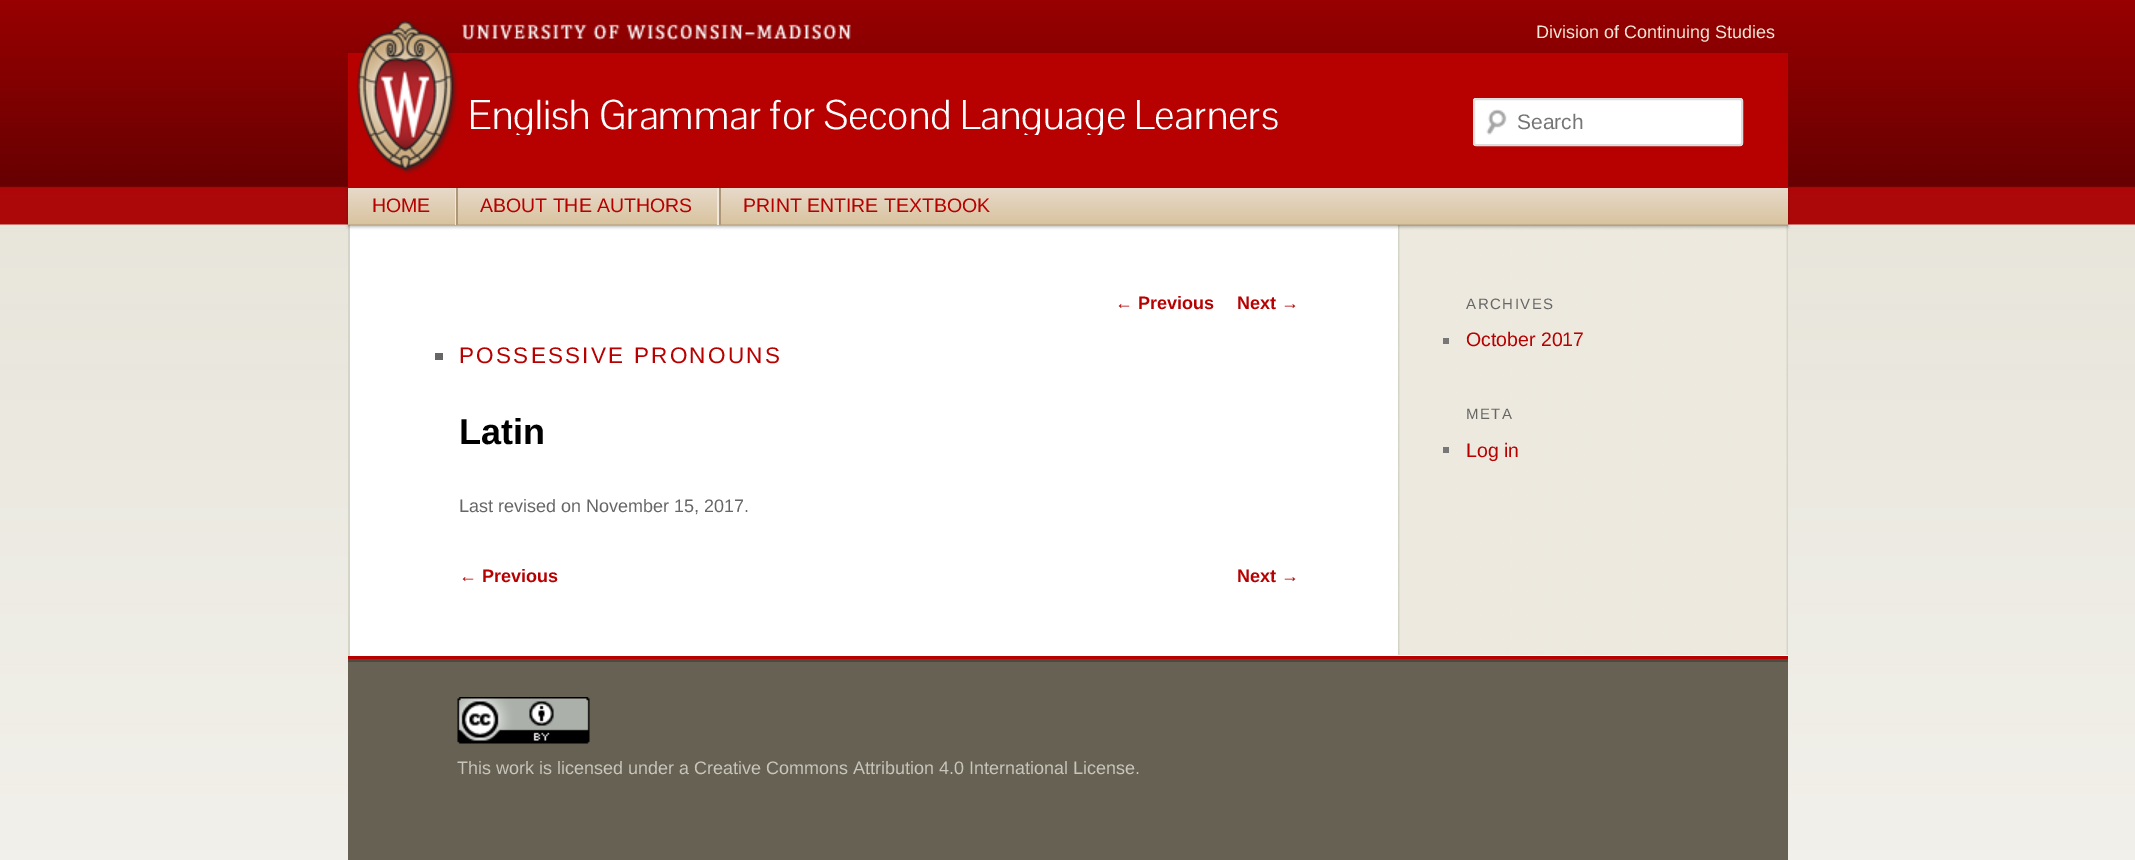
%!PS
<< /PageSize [2135 860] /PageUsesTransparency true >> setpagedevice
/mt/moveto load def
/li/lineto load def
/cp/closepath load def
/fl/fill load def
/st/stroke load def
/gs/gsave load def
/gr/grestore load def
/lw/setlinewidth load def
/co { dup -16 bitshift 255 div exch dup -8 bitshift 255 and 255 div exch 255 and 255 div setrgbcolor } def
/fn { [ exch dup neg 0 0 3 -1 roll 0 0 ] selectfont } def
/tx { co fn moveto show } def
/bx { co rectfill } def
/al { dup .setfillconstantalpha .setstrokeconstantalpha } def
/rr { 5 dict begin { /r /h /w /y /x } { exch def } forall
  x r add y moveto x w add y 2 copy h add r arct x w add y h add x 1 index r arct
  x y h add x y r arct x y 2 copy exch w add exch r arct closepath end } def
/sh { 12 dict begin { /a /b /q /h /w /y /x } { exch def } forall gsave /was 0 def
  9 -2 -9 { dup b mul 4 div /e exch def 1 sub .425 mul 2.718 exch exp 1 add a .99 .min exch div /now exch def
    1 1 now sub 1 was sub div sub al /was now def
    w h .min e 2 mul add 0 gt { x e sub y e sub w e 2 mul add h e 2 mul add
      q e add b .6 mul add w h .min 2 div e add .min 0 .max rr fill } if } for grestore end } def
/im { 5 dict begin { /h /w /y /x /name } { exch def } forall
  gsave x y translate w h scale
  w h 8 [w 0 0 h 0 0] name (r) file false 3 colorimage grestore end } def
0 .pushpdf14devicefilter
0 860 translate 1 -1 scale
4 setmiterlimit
0 0 2135 860 16#FFFFFF bx
(media/1.raw) 0 0 2135 860 im
350 225 1438 431 16#FFFFFF bx
348 53 1440 135 16#B70101 bx
(media/2.raw) 356 20 102 155 im
(media/3.raw) 461 24 390 16 im
16#FFFFFF co
1473 98 270 48 3 rr fl
(media/4.raw) 1486 109 21 26 im
16#DDDDDD co
2 lw
1474 99 268 46 2 rr st
(media/5.raw) 1398 225 390 430 im
348 225 2 431 16#D4D5C8 bx
16#000000 co
348 189 1440 38 0 1.5 .25 sh
gs 348 188 mt 1788 188 li 1788 225 li 348 225 li cp clip newpath
<< /ShadingType 2 /ColorSpace /DeviceRGB /Coords [1068 187 1068 225] /Extend [true true] /Function << /FunctionType 2 /Domain [0 1] /C0 [.906 .859 .796] /C1 [.851 .765 .62] /N 1 >> >> shfill gr
0.1 al
348 224 1440 2 16#000000 bx
1 al
455 188 1 37 16#F0E8DB bx
717 188 2 37 16#F0E8DB bx
456 188 2 37 16#AE9779 bx
719 188 2 37 16#AE9779 bx
435 353 8 7 16#666666 bx
1443 338 6 6 16#777777 bx
1443 447 6 6 16#777777 bx
348 656 1440 3 16#B70101 bx
348 662 1440 198 16#666152 bx
348 659 1440 3 16#4E4A3F bx
(media/6.raw) 457 697 133 47 im
(Division of Continuing Studies) 1536 38 /LiberationSans-Regular 18 16#EFE8D8 tx
gs
468 92 1008 43 rectclip
(English Grammar for Second Language Learners) 468 129 /PontanoSans-Light 40.5 16#FFFFFF tx
gr
(Search) 1517 129 /LiberationSans-Regular 21 16#757575 tx
(HOME) 372 212 /LiberationSans-Regular 19.5 16#B70101 tx
(ABOUT THE AUTHORS) 480 212 /LiberationSans-Regular 19.5 16#B70101 tx
(PRINT ENTIRE TEXTBOOK) 743 212 /LiberationSans-Regular 19.5 16#B70101 tx
(←) 1115 309 /LiberationSans-Regular 18 16#B70101 tx
(Previous) 1138 309 /LiberationSans-Bold 18 16#B70101 tx
(Next) 1237 309 /LiberationSans-Bold 18 16#B70101 tx
(→) 1281 309 /LiberationSans-Regular 18 16#B70101 tx
/LiberationSans-Regular 22.5 fn
459 363 mt 2.25 0 (POSSESSIVE PRONOUNS) ashow
(Latin) 459 444 /LiberationSans-Bold 36 16#000000 tx
(Last revised on November 15, 2017.) 459 512 /LiberationSans-Regular 18 16#666666 tx
(←) 459 582 /LiberationSans-Regular 18 16#B70101 tx
(Previous) 482 582 /LiberationSans-Bold 18 16#B70101 tx
(Next) 1237 582 /LiberationSans-Bold 18 16#B70101 tx
(→) 1281 582 /LiberationSans-Regular 18 16#B70101 tx
/LiberationSans-Regular 15 fn
16#666666 co
1466 309 mt 1.5 0 (ARCHIVES) ashow
(October 2017) 1466 346 /LiberationSans-Regular 19.5 16#B70101 tx
/LiberationSans-Regular 15 fn
16#666666 co
1466 419 mt 1.5 0 (META) ashow
(Log in) 1466 457 /LiberationSans-Regular 19.5 16#B70101 tx
(This work is licensed under a Creative Commons Attribution 4.0 International License.) 457 774 /LiberationSans-Regular 18 16#C8C5BB tx
.poppdf14devicefilter showpage
